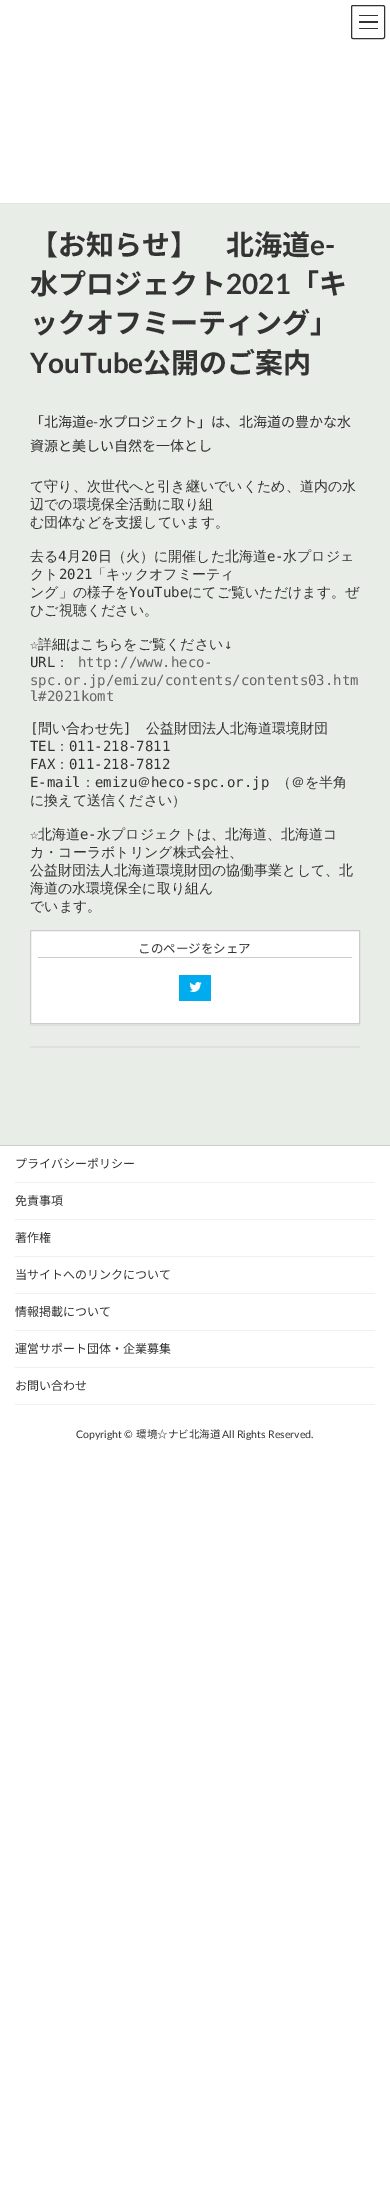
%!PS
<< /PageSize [390 2204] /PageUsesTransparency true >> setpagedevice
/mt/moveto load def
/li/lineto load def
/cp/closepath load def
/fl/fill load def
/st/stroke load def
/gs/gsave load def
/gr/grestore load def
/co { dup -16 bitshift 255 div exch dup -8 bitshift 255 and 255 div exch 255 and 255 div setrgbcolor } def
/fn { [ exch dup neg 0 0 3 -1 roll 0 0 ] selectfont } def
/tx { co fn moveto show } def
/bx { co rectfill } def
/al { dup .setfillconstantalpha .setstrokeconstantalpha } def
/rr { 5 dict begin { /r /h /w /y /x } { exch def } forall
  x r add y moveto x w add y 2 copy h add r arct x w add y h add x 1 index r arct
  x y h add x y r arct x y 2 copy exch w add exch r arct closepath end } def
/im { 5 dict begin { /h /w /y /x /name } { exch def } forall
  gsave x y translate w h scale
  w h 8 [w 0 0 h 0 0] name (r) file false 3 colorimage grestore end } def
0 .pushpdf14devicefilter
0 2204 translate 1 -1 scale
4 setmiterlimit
0 0 390 2204 16#FFFFFF bx
0 204 390 941 16#E9EDE8 bx
359 15 19 1 16#333333 bx
359 21 19 2 16#333333 bx
359 28 19 1 16#333333 bx
351.5 5.5 33 33 1.5 rr st
0 203 390 1 16#E5E5E5 bx
16#FFFFFF co
30.5 930.5 mt 359.5 930.5 li 359.5 1023.5 li 30.5 1023.5 li cp gs fl gr
16#CCCCCC co
st
38 957 314 1 16#CCCCCC bx
179 975 32 26 16#00ACEE bx
(media/1.raw) 189 982 13 10 im
16#FFFFFF co
30 1024 330 2 1 rr fl
0.12 al
30 1024 330 2 16#000000 bx
1 al
16#FFFFFF co
30 1046 330 2 1 rr fl
0.12 al
30 1046 330 2 16#000000 bx
1 al
0 1145 390 1 16#CCCCCC bx
15 1182 360 1 16#F0F0F0 bx
15 1219 360 1 16#F0F0F0 bx
15 1256 360 1 16#F0F0F0 bx
15 1293 360 1 16#F0F0F0 bx
15 1330 360 1 16#F0F0F0 bx
15 1367 360 1 16#F0F0F0 bx
15 1404 360 1 16#F0F0F0 bx
(【お知らせ】　北海道) 30 255 /NotoSansJP-Bold 28 16#333333 tx
(e-) 310 255 /Lato-Bold 28 16#333333 tx
(水プロジェクト) 30 294 /NotoSansJP-Bold 28 16#333333 tx
(2021) 226 294 /Lato-Bold 28 16#333333 tx
(「キ) 291 294 /NotoSansJP-Bold 28 16#333333 tx
(ックオフミーティング」) 30 333 /NotoSansJP-Bold 28 16#333333 tx
(YouTube) 30 373 /Lato-Bold 28 16#333333 tx
(公開のご案内) 143 373 /NotoSansJP-Bold 28 16#333333 tx
(「北海道) 30 427 /NotoSansJP-Regular 14 16#333333 tx
(e-) 86 427 /Lato-Regular 14 16#333333 tx
(水プロジェクト」は、北海道の豊かな水) 99 427 /NotoSansJP-Regular 14 16#333333 tx
(資源と美しい自然を一体とし) 30 451 /NotoSansJP-Regular 14 16#333333 tx
(て守り、次世代へと引き継いでいくため、道内の水) 30 491 /WenQuanYiZenHei-Medium 14 16#333333 tx
(辺での環境保全活動に取り組) 30 509 /WenQuanYiZenHei-Medium 14 16#333333 tx
(む団体などを支援しています。) 30 527 /WenQuanYiZenHei-Medium 14 16#333333 tx
(去る) 30 561 /WenQuanYiZenHei-Medium 14 16#333333 tx
(4) 58 561 /DejaVuSansMono-Regular 14 16#333333 tx
(月) 67 561 /WenQuanYiZenHei-Medium 14 16#333333 tx
(20) 81 561 /DejaVuSansMono-Regular 14 16#333333 tx
(日（火）に開催した北海道) 98 561 /WenQuanYiZenHei-Medium 14 16#333333 tx
(e-) 267 561 /DejaVuSansMono-Regular 14 16#333333 tx
(水プロジェ) 283 561 /WenQuanYiZenHei-Medium 14 16#333333 tx
(クト) 30 579 /WenQuanYiZenHei-Medium 14 16#333333 tx
(2021) 59 579 /DejaVuSansMono-Regular 14 16#333333 tx
(「キックオフミーティ) 92 579 /WenQuanYiZenHei-Medium 14 16#333333 tx
(ング」の様子を) 30 597 /WenQuanYiZenHei-Medium 14 16#333333 tx
(YouTube) 129 597 /DejaVuSansMono-Regular 14 16#333333 tx
(にてご覧いただけます。ぜ) 188 597 /WenQuanYiZenHei-Medium 14 16#333333 tx
(ひご視聴ください。) 30 615 /WenQuanYiZenHei-Medium 14 16#333333 tx
(☆) 30 649 /DejaVuSansMono-Regular 14 16#333333 tx
(詳細はこちらをご覧ください) 38 649 /WenQuanYiZenHei-Medium 14 16#333333 tx
(↓) 224 649 /DejaVuSansMono-Regular 14 16#333333 tx
(URL) 30 667 /DejaVuSansMono-Regular 14 16#333333 tx
(：) 55 667 /WenQuanYiZenHei-Medium 14 16#333333 tx
(http://www.heco-) 78 667 /DejaVuSansMono-Regular 14 16#666666 tx
(spc.or.jp/emizu/contents/contents03.htm) 30 685 /DejaVuSansMono-Regular 14 16#666666 tx
(l#2021komt) 30 701 /DejaVuSansMono-Regular 14 16#666666 tx
([) 30 733 /DejaVuSansMono-Regular 14 16#333333 tx
(問い合わせ先) 38 733 /WenQuanYiZenHei-Medium 14 16#333333 tx
(]) 123 733 /DejaVuSansMono-Regular 14 16#333333 tx
(公益財団法人北海道環境財団) 146 733 /WenQuanYiZenHei-Medium 14 16#333333 tx
(TEL) 30 751 /DejaVuSansMono-Regular 14 16#333333 tx
(：) 55 751 /WenQuanYiZenHei-Medium 14 16#333333 tx
(011-218-7811) 69 751 /DejaVuSansMono-Regular 14 16#333333 tx
(FAX) 30 769 /DejaVuSansMono-Regular 14 16#333333 tx
(：) 55 769 /WenQuanYiZenHei-Medium 14 16#333333 tx
(011-218-7812) 69 769 /DejaVuSansMono-Regular 14 16#333333 tx
(E-mail) 30 787 /DejaVuSansMono-Regular 14 16#333333 tx
(：) 81 787 /WenQuanYiZenHei-Medium 14 16#333333 tx
(emizu) 95 787 /DejaVuSansMono-Regular 14 16#333333 tx
(＠) 137 787 /WenQuanYiZenHei-Medium 14 16#333333 tx
(heco-spc.or.jp) 151 787 /DejaVuSansMono-Regular 14 16#333333 tx
(（＠を半角) 277 787 /WenQuanYiZenHei-Medium 14 16#333333 tx
(に換えて送信ください）) 30 805 /WenQuanYiZenHei-Medium 14 16#333333 tx
(☆) 30 839 /DejaVuSansMono-Regular 14 16#333333 tx
(北海道) 38 839 /WenQuanYiZenHei-Medium 14 16#333333 tx
(e-) 80 839 /DejaVuSansMono-Regular 14 16#333333 tx
(水プロジェクトは、北海道、北海道コ) 97 839 /WenQuanYiZenHei-Medium 14 16#333333 tx
(カ・コーラボトリング株式会社、) 30 857 /WenQuanYiZenHei-Medium 14 16#333333 tx
(公益財団法人北海道環境財団の協働事業として、北) 30 875 /WenQuanYiZenHei-Medium 14 16#333333 tx
(海道の水環境保全に取り組ん) 30 893 /WenQuanYiZenHei-Medium 14 16#333333 tx
(でいます。) 30 911 /WenQuanYiZenHei-Medium 14 16#333333 tx
(このページをシェア) 138 953 /NotoSansJP-Regular 12.5 16#333333 tx
(プライバシーポリシー) 15 1168 /NotoSansJP-Regular 12 16#333333 tx
(免責事項) 15 1205 /NotoSansJP-Regular 12 16#333333 tx
(著作権) 15 1242 /NotoSansJP-Regular 12 16#333333 tx
(当サイトへのリンクについて) 15 1279 /NotoSansJP-Regular 12 16#333333 tx
(情報掲載について) 15 1316 /NotoSansJP-Regular 12 16#333333 tx
(運営サポート団体・企業募集) 15 1353 /NotoSansJP-Regular 12 16#333333 tx
(お問い合わせ) 15 1390 /NotoSansJP-Regular 12 16#333333 tx
(Copyright ©) 76 1438 /Lato-Regular 10.5 16#333333 tx
(環境☆ナビ北海道) 136 1438 /NotoSansJP-Regular 10.5 16#333333 tx
(All Rights Reserved.) 222 1438 /Lato-Regular 10.5 16#333333 tx
.poppdf14devicefilter showpage
